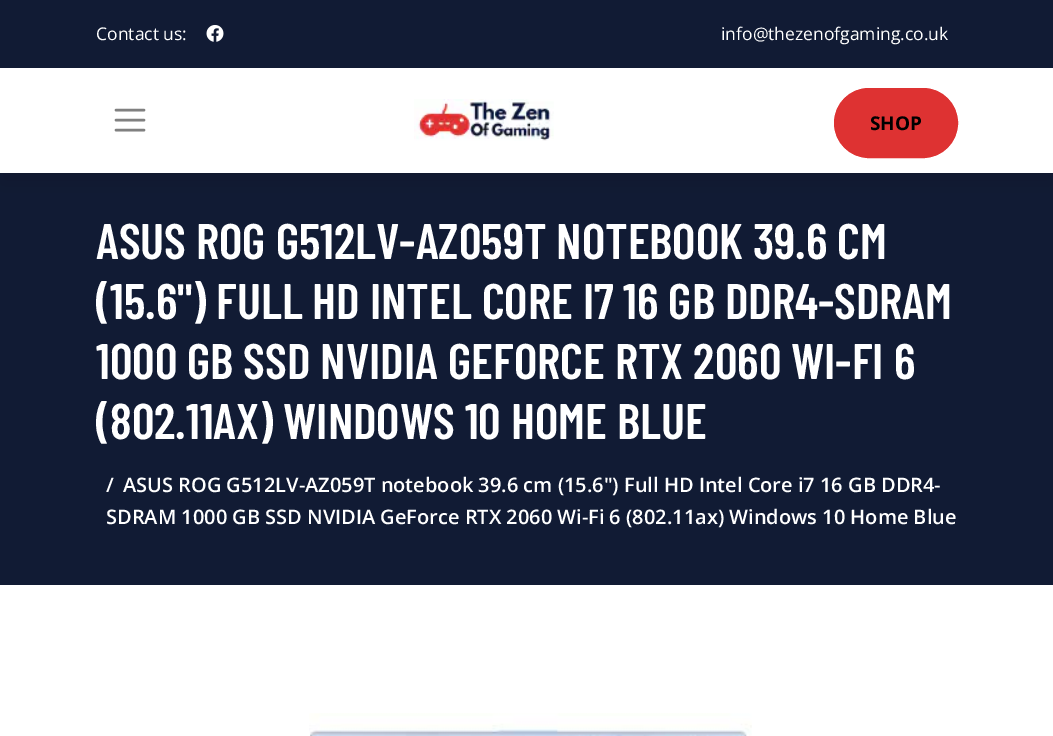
%!PS
<< /PageSize [1053 736] /PageUsesTransparency true >> setpagedevice
/mt/moveto load def
/li/lineto load def
/fl/fill load def
/st/stroke load def
/gs/gsave load def
/gr/grestore load def
/lw/setlinewidth load def
/co { dup -16 bitshift 255 div exch dup -8 bitshift 255 and 255 div exch 255 and 255 div setrgbcolor } def
/fn { [ exch dup neg 0 0 3 -1 roll 0 0 ] selectfont } def
/tx { co fn moveto show } def
/bx { co rectfill } def
/al { dup .setfillconstantalpha .setstrokeconstantalpha } def
/rr { 5 dict begin { /r /h /w /y /x } { exch def } forall
  x r add y moveto x w add y 2 copy h add r arct x w add y h add x 1 index r arct
  x y h add x y r arct x y 2 copy exch w add exch r arct closepath end } def
/sh { 12 dict begin { /a /b /q /h /w /y /x } { exch def } forall gsave /was 0 def
  9 -2 -9 { dup b mul 4 div /e exch def 1 sub .425 mul 2.718 exch exp 1 add a .99 .min exch div /now exch def
    1 1 now sub 1 was sub div sub al /was now def
    w h .min e 2 mul add 0 gt { x e sub y e sub w e 2 mul add h e 2 mul add
      q e add b .6 mul add w h .min 2 div e add .min 0 .max rr fill } if } for grestore end } def
/im { 5 dict begin { /h /w /y /x /name } { exch def } forall
  gsave x y translate w h scale
  w h 8 [w 0 0 h 0 0] name (r) file false 3 colorimage grestore end } def
0 .pushpdf14devicefilter
0 736 translate 1 -1 scale
4 setmiterlimit
0 0 1053 736 16#FFFFFF bx
0 0 1053 68 16#111B34 bx
(media/1.raw) 206 25 18 17 im
0 173 1053 412 16#111B34 bx
16#000000 co
0 79 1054 105 0 12.5 .09 sh
0 68 1053 105 16#FFFFFF bx
16#808080 co
2.5 lw
1 setlinecap
116 110 mt 144 110 li 116 120 mt 144 120 li 116 130 mt 144 130 li st
(media/2.raw) 414 99 140 42 im
16#DE3232 co
834.5 88.5 123 69 34.5 rr gs fl gr
1 lw
0 setlinecap
st
(media/3.raw) 309 713 443 23 im
(Contact us:) 96 40 /OpenSans-Regular 17.5 16#FFFFFF tx
(info@thezenofgaming.co.uk) 721 40 /OpenSans-Regular 17.5 16#FFFFFF tx
(SHOP) 870 130 /OpenSans-Bold 19 16#000000 tx
(ASUS ROG G512LV-AZ059T NOTEBOOK 39.6 CM) 96 259 /BarlowCondensed-SemiBold 50 16#FFFFFF tx
(\(15.6"\) FULL HD INTEL CORE I7 16 GB DDR4-SDRAM) 96 319 /BarlowCondensed-SemiBold 50 16#FFFFFF tx
(1000 GB SSD NVIDIA GEFORCE RTX 2060 WI-FI 6) 96 379 /BarlowCondensed-SemiBold 50 16#FFFFFF tx
(\(802.11AX\) WINDOWS 10 HOME BLUE) 96 439 /BarlowCondensed-SemiBold 50 16#FFFFFF tx
(/) 106 492 /OpenSans-SemiBold 20 16#FFFFFF tx
(ASUS ROG G512LV-AZ059T notebook 39.6 cm \(15.6"\) Full HD Intel Core i7 16 GB DDR4-) 123 492 /OpenSans-SemiBold 20 16#FFFFFF tx
(SDRAM 1000 GB SSD NVIDIA GeForce RTX 2060 Wi-Fi 6 \(802.11ax\) Windows 10 Home Blue) 106 524 /OpenSans-SemiBold 20 16#FFFFFF tx
.poppdf14devicefilter showpage
